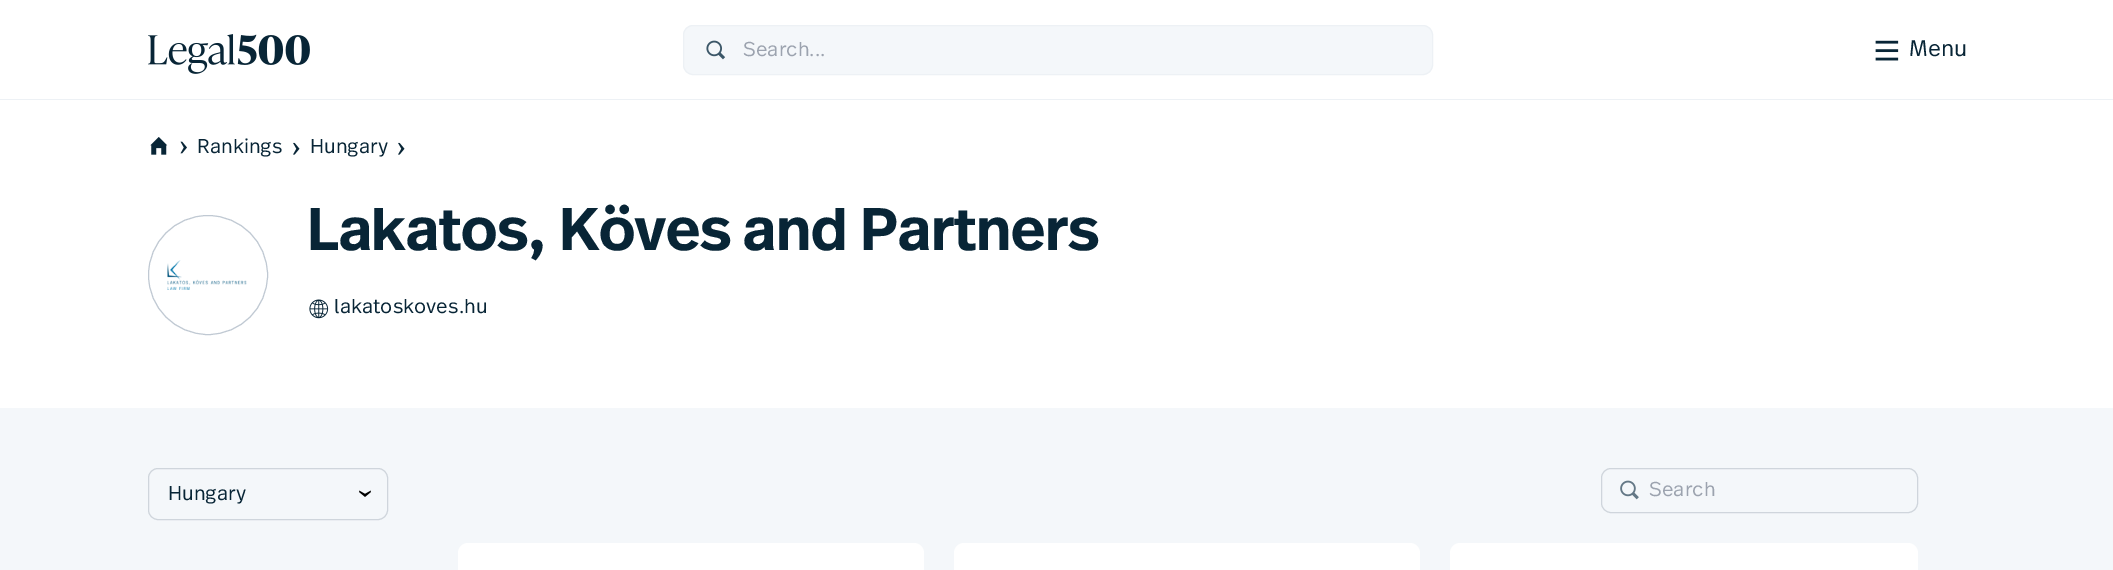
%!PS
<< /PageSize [2113 570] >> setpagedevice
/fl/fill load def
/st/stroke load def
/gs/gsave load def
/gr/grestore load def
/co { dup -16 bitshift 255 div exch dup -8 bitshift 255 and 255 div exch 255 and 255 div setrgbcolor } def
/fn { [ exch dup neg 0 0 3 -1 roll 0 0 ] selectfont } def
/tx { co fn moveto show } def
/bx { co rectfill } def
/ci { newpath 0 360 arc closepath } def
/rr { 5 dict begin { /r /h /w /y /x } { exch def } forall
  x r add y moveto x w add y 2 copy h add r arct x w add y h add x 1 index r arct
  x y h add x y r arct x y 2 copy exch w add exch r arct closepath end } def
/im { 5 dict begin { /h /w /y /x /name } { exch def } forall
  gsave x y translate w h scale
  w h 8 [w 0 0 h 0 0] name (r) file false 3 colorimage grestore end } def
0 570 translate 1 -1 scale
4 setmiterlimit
0 0 2113 570 16#FFFFFF bx
0 99 2113 1 16#EDF1F5 bx
(media/1.raw) 148 34 162 40 im
16#F4F7FA co
683.5 25.5 749 49 9.5 rr gs fl gr
16#EDF1F5 co
st
(media/2.raw) 706 40 20 20 im
(media/3.raw) 1875 40 24 21 im
0 408 2113 162 16#F4F7FA bx
(media/4.raw) 150 137 18 18 im
(media/5.raw) 180 141 7 13 im
(media/6.raw) 293 142 7 13 im
(media/6.raw) 398 142 7 13 im
16#C0C9D3 co
208 275 59.5 ci st
(media/7.raw) 167 260 80 30 im
(media/8.raw) 309 299 20 20 im
16#CFD5DC co
148.5 468.5 239 51 9.5 rr st
(media/9.raw) 359 490 12 7 im
1601.5 468.5 316 44 9.5 rr st
(media/10.raw) 1620 480 19 20 im
16#FFFFFF co
458 543 466 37 10 rr fl
954 543 466 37 10 rr fl
1450 543 468 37 10 rr fl
(Search...) 743 56 /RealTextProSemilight-Light 20 16#9CA3AF tx
(Menu) 1909 56 /RealTextProSemilight-Light 22.5 16#082536 tx
(Rankings) 197 153 /RealTextProSemilight-Light 20 16#082536 tx
(Hungary) 310 153 /RealTextProSemilight-Light 20 16#082536 tx
(Lakatos, Köves and Partners) 307 250 /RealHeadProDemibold-SemiBold 60 16#082536 tx
(lakatoskoves.hu) 334 313 /RealTextProSemilight-Light 20 16#082536 tx
(Hungary) 168 500 /RealTextProSemilight-Light 20 16#082536 tx
(Search) 1649 496 /RealTextProSemilight-Light 20 16#9CA3AF tx
showpage
